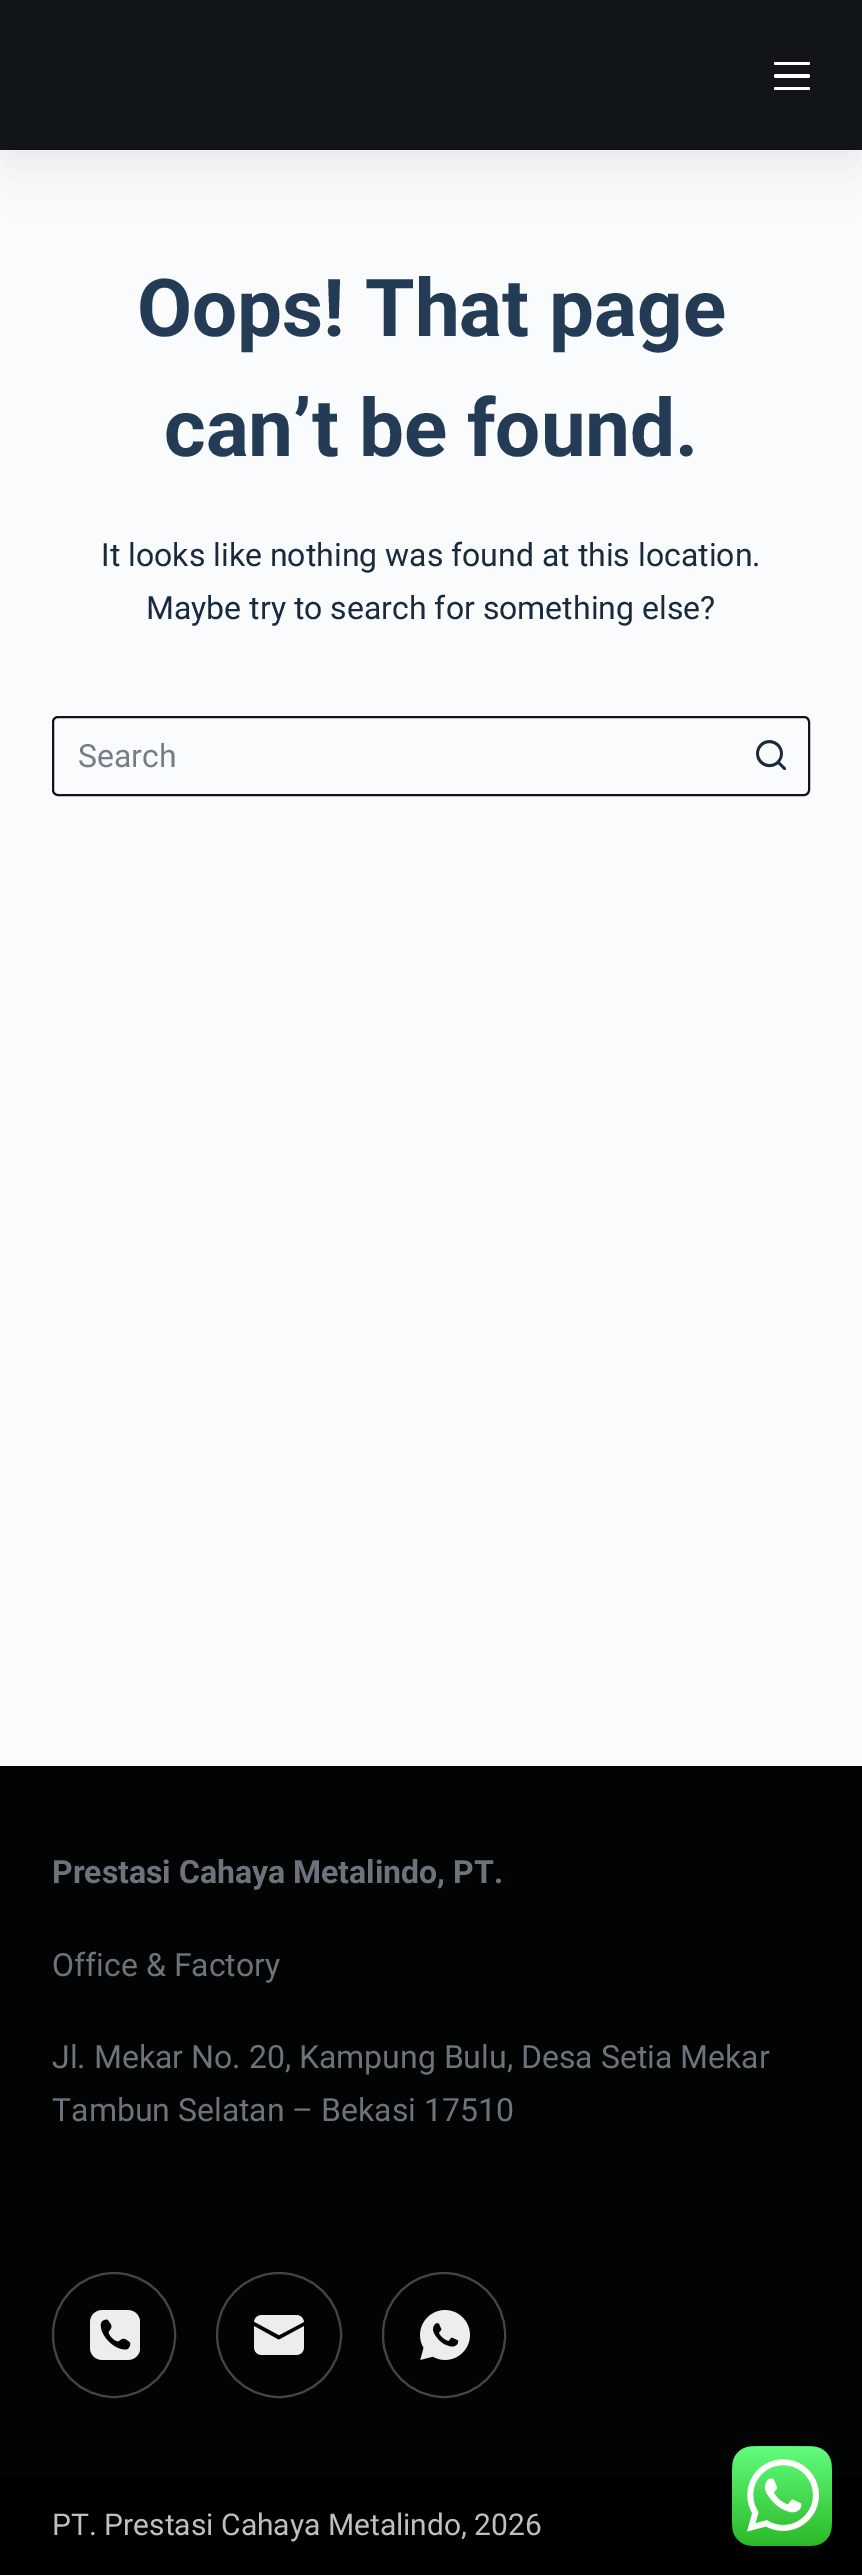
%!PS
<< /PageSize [862 2575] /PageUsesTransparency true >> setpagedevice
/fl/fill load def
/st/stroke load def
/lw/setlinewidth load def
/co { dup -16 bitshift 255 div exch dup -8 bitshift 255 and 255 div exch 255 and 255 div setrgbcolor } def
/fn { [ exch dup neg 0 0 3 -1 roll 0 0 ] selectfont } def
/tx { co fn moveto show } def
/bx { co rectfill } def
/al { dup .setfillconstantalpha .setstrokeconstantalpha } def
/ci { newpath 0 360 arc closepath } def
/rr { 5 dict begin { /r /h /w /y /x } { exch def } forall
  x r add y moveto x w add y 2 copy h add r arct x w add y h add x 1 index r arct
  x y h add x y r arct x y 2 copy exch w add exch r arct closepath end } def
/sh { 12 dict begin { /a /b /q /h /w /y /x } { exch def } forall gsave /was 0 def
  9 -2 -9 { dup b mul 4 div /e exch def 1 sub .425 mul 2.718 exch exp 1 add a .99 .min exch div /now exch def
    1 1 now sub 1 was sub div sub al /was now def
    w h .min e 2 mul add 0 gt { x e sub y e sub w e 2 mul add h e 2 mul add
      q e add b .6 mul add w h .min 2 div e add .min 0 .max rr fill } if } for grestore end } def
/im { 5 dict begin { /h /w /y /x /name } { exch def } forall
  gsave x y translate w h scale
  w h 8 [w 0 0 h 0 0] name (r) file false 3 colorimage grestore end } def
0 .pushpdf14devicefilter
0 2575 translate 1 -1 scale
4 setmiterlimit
0 0 862 2575 16#FAFBFC bx
16#2B3D50 co
6 26 850 138 0 25 .1 sh
0 0 862 150 16#111518 bx
16#FFFFFF co
774 62 36 3 1.5 rr fl
774 74 36 4 2 rr fl
774 87 36 3 1.5 rr fl
16#111518 co
2 lw
53 717 756 78 5 rr st
(media/1.raw) 756 740 30 30 im
0 1766 862 712 16#020303 bx
16#434547 co
53 2273 122 124 61 rr st
(media/2.raw) 90 2310 50 50 im
279 2335 62 ci st
(media/3.raw) 254 2315 50 40 im
383 2273 122 124 61 rr st
(media/4.raw) 420 2310 50 50 im
0 2478 862 97 16#000000 bx
(media/5.raw) 732 2446 100 100 im
(Oops! That page) 137 336 /Roboto-Bold 80 16#243B56 tx
(can’t be found.) 164 456 /Roboto-Bold 80 16#243B56 tx
(It looks like nothing was found at this location.) 101 566 /Roboto-Regular 32 16#192A3D tx
(Maybe try to search for something else?) 146 619 /Roboto-Regular 32 16#192A3D tx
(Search) 78 767 /Roboto-Regular 32 16#737E89 tx
(Prestasi Cahaya Metalindo, PT.) 52 1883 /Roboto-Bold 32 16#6C737D tx
(Office & Factory) 52 1976 /Roboto-Regular 32 16#6C737D tx
(Jl. Mekar No. 20, Kampung Bulu, Desa Setia Mekar) 52 2068 /Roboto-Regular 32 16#6C737D tx
(Tambun Selatan – Bekasi 17510) 52 2121 /Roboto-Regular 32 16#6C737D tx
(PT. Prestasi Cahaya Metalindo, 2026) 52 2535 /Roboto-Regular 30 16#BFBFBF tx
.poppdf14devicefilter showpage
